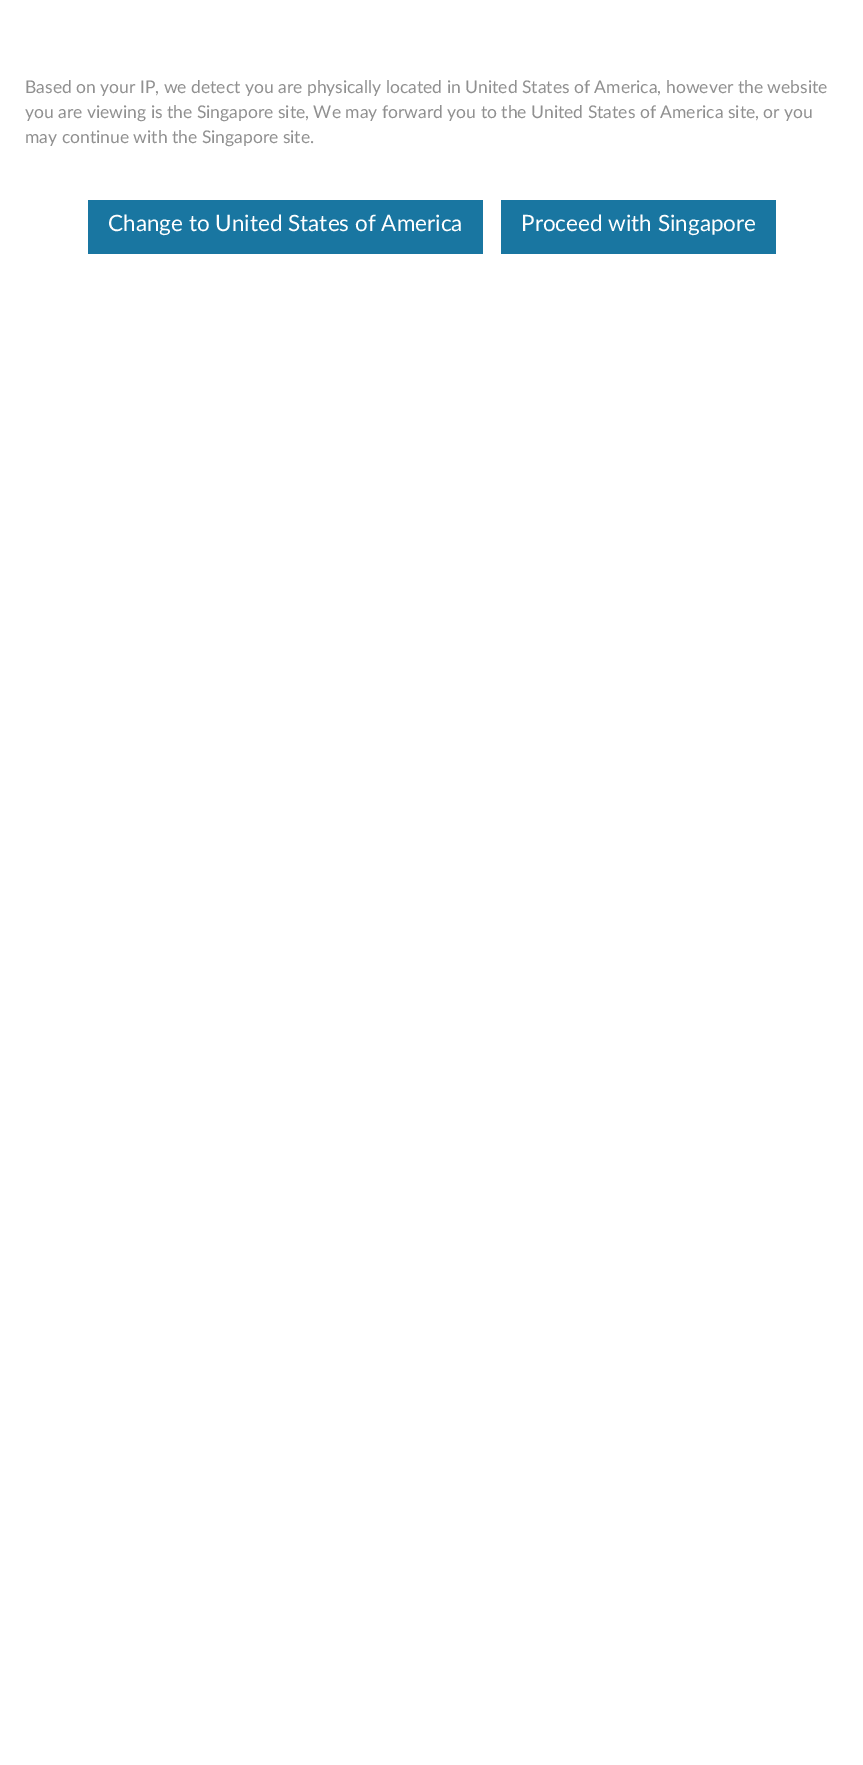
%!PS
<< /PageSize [863 1765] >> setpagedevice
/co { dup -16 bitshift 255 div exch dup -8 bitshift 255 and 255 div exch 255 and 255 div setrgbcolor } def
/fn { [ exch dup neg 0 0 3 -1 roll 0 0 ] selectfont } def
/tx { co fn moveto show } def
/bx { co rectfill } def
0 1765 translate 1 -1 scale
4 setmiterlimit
0 0 863 1765 16#FFFFFF bx
88 200 395 54 16#1976A1 bx
501 200 275 54 16#1976A1 bx
(Based on your IP, we detect you are physically located in United States of America, however the website) 25 93 /Lato-Regular 17.5 16#909090 tx
(you are viewing is the Singapore site, We may forward you to the United States of America site, or you) 25 118 /Lato-Regular 17.5 16#909090 tx
(may continue with the Singapore site.) 25 143 /Lato-Regular 17.5 16#909090 tx
(Change to United States of America) 108 231 /Lato-Regular 22.5 16#FFFFFF tx
(Proceed with Singapore) 521 231 /Lato-Regular 22.5 16#FFFFFF tx
showpage
